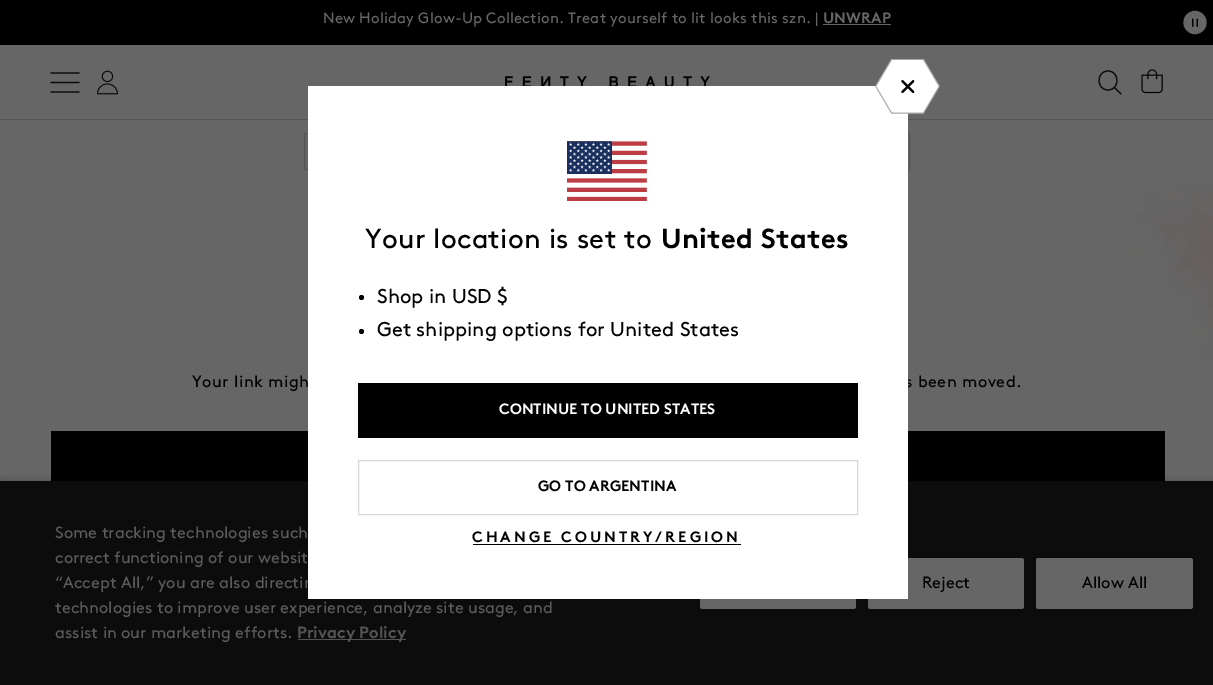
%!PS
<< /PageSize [1213 685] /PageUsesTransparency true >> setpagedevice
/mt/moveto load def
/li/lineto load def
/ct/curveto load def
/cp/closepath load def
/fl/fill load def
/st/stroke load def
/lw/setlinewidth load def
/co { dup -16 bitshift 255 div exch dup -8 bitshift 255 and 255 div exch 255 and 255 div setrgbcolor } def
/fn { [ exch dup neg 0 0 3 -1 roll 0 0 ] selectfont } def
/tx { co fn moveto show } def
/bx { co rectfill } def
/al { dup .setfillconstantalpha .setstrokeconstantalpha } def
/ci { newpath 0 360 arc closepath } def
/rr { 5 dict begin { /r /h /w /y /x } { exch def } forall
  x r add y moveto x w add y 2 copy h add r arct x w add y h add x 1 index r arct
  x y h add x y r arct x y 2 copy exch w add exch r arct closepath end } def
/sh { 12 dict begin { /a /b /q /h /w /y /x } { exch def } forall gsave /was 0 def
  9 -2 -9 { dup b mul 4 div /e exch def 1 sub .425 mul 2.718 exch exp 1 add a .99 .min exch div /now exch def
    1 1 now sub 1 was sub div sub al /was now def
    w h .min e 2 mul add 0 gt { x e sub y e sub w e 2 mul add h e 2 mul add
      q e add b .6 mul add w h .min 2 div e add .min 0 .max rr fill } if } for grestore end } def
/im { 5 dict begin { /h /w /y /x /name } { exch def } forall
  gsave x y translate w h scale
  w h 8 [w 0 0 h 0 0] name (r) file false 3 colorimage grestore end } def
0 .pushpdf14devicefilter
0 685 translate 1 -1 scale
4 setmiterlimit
0 0 1213 685 16#666666 bx
0 0 1213 45 16#000000 bx
823 24 68 1 16#666666 bx
(media/1.raw) 1183 10 24 25 im
0 119 1213 1 16#565656 bx
16#0E0C0D co
1.2 lw
1 setlinecap
51 73 mt 79 73 li 51 82.5 mt 79 82.5 li 51 92 mt 79 92 li st
(media/2.raw) 96 70 22 25 im
(media/3.raw) 505 76 205 10 im
1108 90 mt 1120 90 1120 71 1108 71 ct 1096 71 1096 90 1108 90 ct cp 1121 94 mt 1114.5 87.5 li st
(media/4.raw) 1141 69 22 25 im
16#565656 co
1 lw
0 setlinecap
304.5 133.5 85 36 rectstroke
765.5 133.5 144 36 rectstroke
(media/7.raw) 0 183 1213 298 im
51 431 1114 50 16#000000 bx
0 481 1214 204 0 4 .18 sh
0 481 1213 204 16#0C0C0C bx
16#666666 co
700 558 156 51 2.5 rr fl
298 639 108 1 16#545454 bx
16#666666 co
868 558 156 51 2.5 rr fl
1036 558 157 51 2.5 rr fl
/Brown-Regular 15 fn
323 23 mt .15 0 (New Holiday Glow-Up Collection. Treat yourself to lit looks this szn. |) ashow
/Brown-Bold 15 fn
823 23 mt .15 0 (UNWRAP) ashow
/Brown-Regular 16.25 fn
16#000000 co
192 387 mt .5 0 (Your link migh) ashow
905 387 mt .5 0 (s been moved.) ashow
(Some tracking technologies such) 55 538 /Brown-Regular 16.25 16#5B5B5B tx
(correct functioning of our websit) 55 563 /Brown-Regular 16.25 16#5B5B5B tx
(“Accept All,” you are also directin) 55 588 /Brown-Regular 16.25 16#5B5B5B tx
308 86 600 513 16#FFFFFF bx
(media/5.raw) 875 59 65 55 im
(media/6.raw) 567 141 80 60 im
/Brown-Bold 15 fn
16#000000 co
472 542 mt 3 0 (CHANGE COUNTRY/REGION) ashow
473 544 268 1 16#000000 bx
16#D8D8D8 co
358.5 460.5 499 54 rectstroke
(GO TO ARGENTINA) 538 491 /Brown-Bold 15 16#000000 tx
358 383 500 55 16#000000 bx
(CONTINUE TO UNITED STATES) 499 414 /Brown-Bold 15 16#FFFFFF tx
(Get shipping options for United States) 377 336 /Brown-Regular 20 16#000000 tx
361.5 331.5 2.5 ci fl
(Shop in USD $) 377 303 /Brown-Regular 20 16#000000 tx
361.5 297.5 2.5 ci fl
/Brown-Bold 27.5 fn
661 248 mt .25 0 (United States) ashow
/Brown-Regular 27.5 fn
365 248 mt .25 0 (Your location is set to) ashow
(technologies to improve user experience, analyze site usage, and) 55 613 /Brown-Regular 16.25 16#5B5B5B tx
(assist in our marketing efforts.) 55 638 /Brown-Regular 16.25 16#5B5B5B tx
(Privacy Policy) 297 638 /Brown-Bold 16.25 16#545454 tx
(Reject) 922 588 /Brown-Regular 16.25 16#000000 tx
(Allow All) 1082 588 /Brown-Regular 16.25 16#000000 tx
.poppdf14devicefilter showpage
